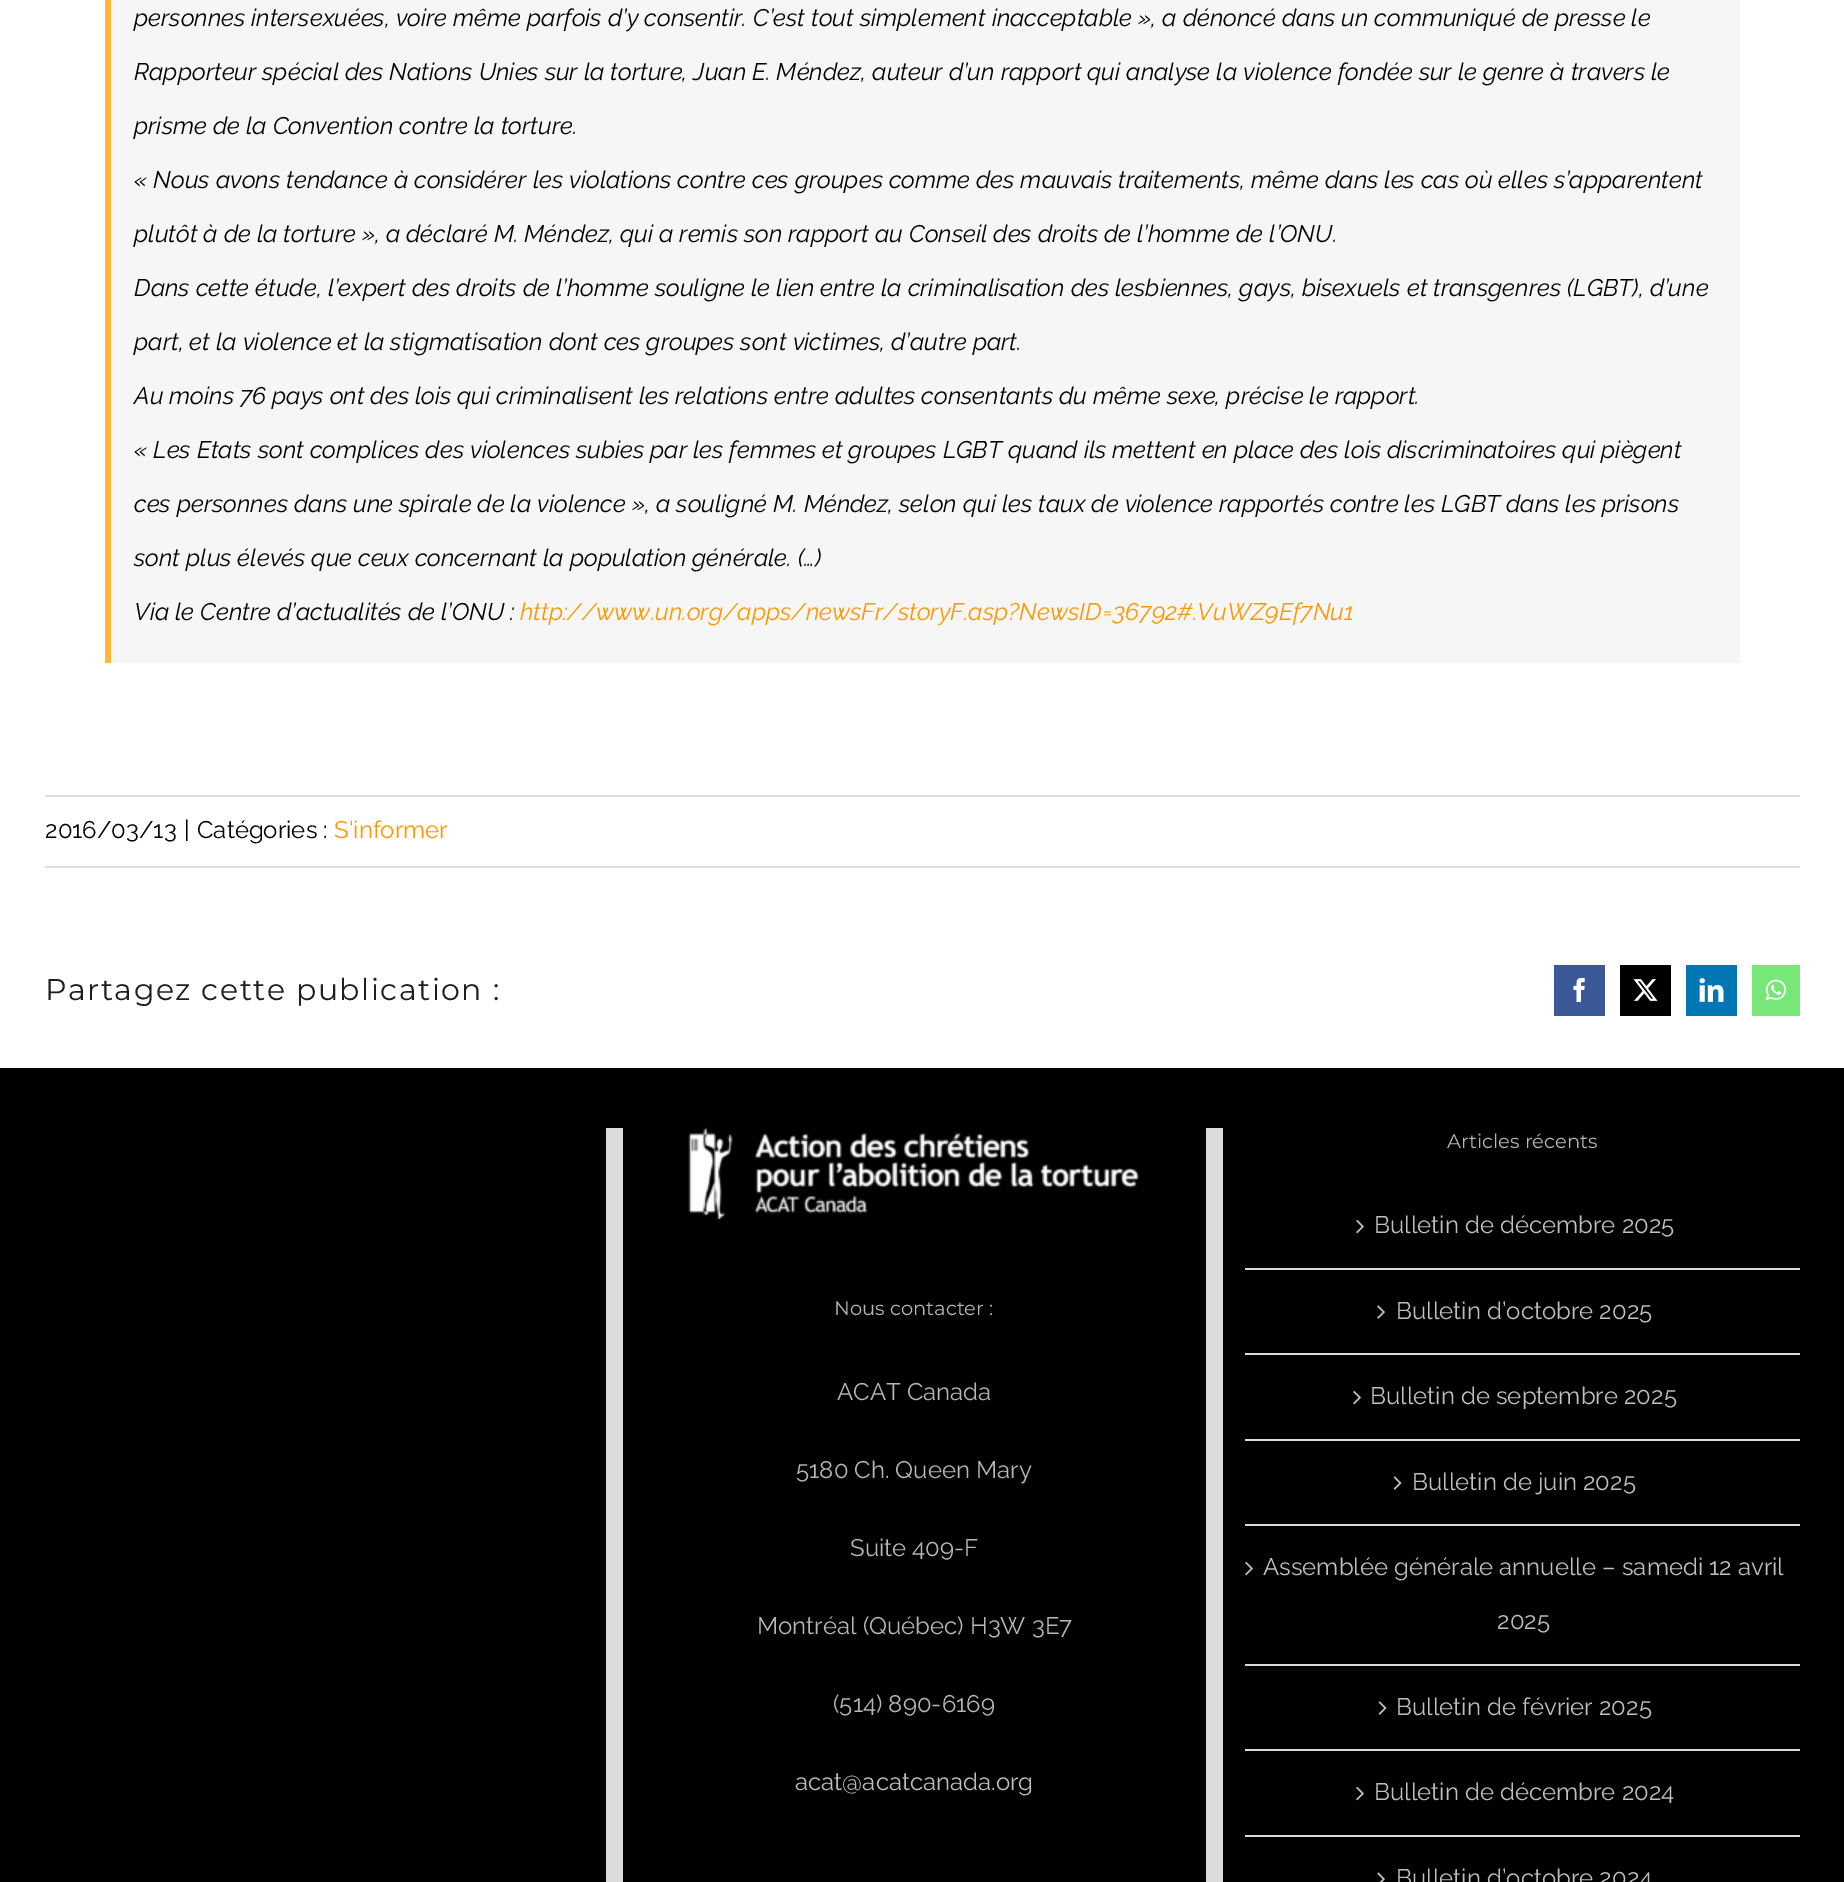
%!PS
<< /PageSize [1844 1882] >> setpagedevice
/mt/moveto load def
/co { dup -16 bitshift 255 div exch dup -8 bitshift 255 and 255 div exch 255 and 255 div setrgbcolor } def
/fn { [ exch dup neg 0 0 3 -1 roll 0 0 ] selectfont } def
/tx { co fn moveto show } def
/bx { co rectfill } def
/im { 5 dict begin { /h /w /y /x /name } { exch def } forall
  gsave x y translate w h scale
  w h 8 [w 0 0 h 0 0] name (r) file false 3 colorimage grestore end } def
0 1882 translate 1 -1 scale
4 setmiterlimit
0 0 1844 1882 16#FFFFFF bx
111 0 1629 663 16#F6F6F6 bx
105 0 6 663 16#FFB638 bx
45 795 1755 2 16#E0DEDE bx
45 866 1755 2 16#E0DEDE bx
1554 965 51 51 16#3B5998 bx
(media/1.raw) 1573 978 12 24 im
1620 965 51 51 16#000000 bx
(media/2.raw) 1633 979 25 22 im
1686 965 51 51 16#0077B5 bx
(media/3.raw) 1699 978 25 24 im
1752 965 48 51 16#77E878 bx
(media/4.raw) 1765 979 22 22 im
0 1068 1844 814 16#000000 bx
606 1128 17 754 16#DDDBD9 bx
1206 1128 17 754 16#DDDBD9 bx
(media/5.raw) 688 1127 451 92 im
1245 1268 555 2 16#DDDBD9 bx
(media/6.raw) 1356 1219 8 15 im
1245 1353 555 2 16#DDDBD9 bx
(media/7.raw) 1377 1305 8 14 im
1245 1439 555 2 16#DDDBD9 bx
(media/6.raw) 1353 1390 8 15 im
1245 1524 555 2 16#DDDBD9 bx
(media/8.raw) 1393 1476 9 14 im
1245 1664 555 2 16#DDDBD9 bx
(media/6.raw) 1245 1561 8 15 im
1245 1749 555 2 16#DDDBD9 bx
(media/8.raw) 1378 1701 9 14 im
1245 1835 555 2 16#DDDBD9 bx
(media/6.raw) 1356 1786 8 15 im
(media/9.raw) 1377 1872 8 10 im
(personnes intersexuées, voire même parfois d’y consentir. C’est tout simplement inacceptable », a dénoncé dans un communiqué de presse le) 134 26 /Raleway-Italic 24 16#000000 tx
(Rapporteur spécial des Nations Unies sur la torture, Juan E. Méndez, auteur d’un rapport qui analyse la violence fondée sur le genre à travers le) 134 80 /Raleway-Italic 24 16#000000 tx
(prisme de la Convention contre la torture.) 134 134 /Raleway-Italic 24 16#000000 tx
(« Nous avons tendance à considérer les violations contre ces groupes comme des mauvais traitements, même dans les cas où elles s’apparentent) 134 188 /Raleway-Italic 24 16#000000 tx
(plutôt à de la torture », a déclaré M. Méndez, qui a remis son rapport au Conseil des droits de l’homme de l’ONU.) 134 242 /Raleway-Italic 24 16#000000 tx
(Dans cette étude, l’expert des droits de l’homme souligne le lien entre la criminalisation des lesbiennes, gays, bisexuels et transgenres \(LGBT\), d’une) 134 296 /Raleway-Italic 24 16#000000 tx
(part, et la violence et la stigmatisation dont ces groupes sont victimes, d’autre part.) 134 350 /Raleway-Italic 24 16#000000 tx
(Au moins 76 pays ont des lois qui criminalisent les relations entre adultes consentants du même sexe, précise le rapport.) 134 404 /Raleway-Italic 24 16#000000 tx
(« Les Etats sont complices des violences subies par les femmes et groupes LGBT quand ils mettent en place des lois discriminatoires qui piègent) 134 458 /Raleway-Italic 24 16#000000 tx
(ces personnes dans une spirale de la violence », a souligné M. Méndez, selon qui les taux de violence rapportés contre les LGBT dans les prisons) 134 512 /Raleway-Italic 24 16#000000 tx
(sont plus élevés que ceux concernant la population générale. \(…\)) 134 566 /Raleway-Italic 24 16#000000 tx
(Via le Centre d’actualités de l’ONU :) 134 620 /Raleway-Italic 24 16#000000 tx
(http://www.un.org/apps/newsFr/storyF.asp?NewsID=36792#.VuWZ9Ef7Nu1) 520 620 /Raleway-Italic 24 16#FF9800 tx
(2016/03/13) 45 838 /Raleway-Regular 24 16#000000 tx
(|) 184 838 /Raleway-Regular 24 16#000000 tx
(Catégories :) 197 838 /Raleway-Regular 24 16#000000 tx
(S'informer) 334 838 /Raleway-Regular 24 16#FF9800 tx
/Montserrat-Thin 30 fn
16#1E1E1E co
45 1000 mt 1.5 0 (Partagez cette publication :) ashow
(Nous contacter :) 834 1315 /Montserrat-Thin 19.5 16#B2B7B8 tx
(ACAT Canada) 837 1400 /Raleway-Regular 24 16#B2B7B8 tx
(5180 Ch. Queen Mary) 796 1478 /Raleway-Regular 24 16#B2B7B8 tx
(Suite 409-F) 850 1556 /Raleway-Regular 24 16#B2B7B8 tx
(Montréal \(Québec\) H3W 3E7) 757 1634 /Raleway-Regular 24 16#B2B7B8 tx
(\(514\) 890-6169) 833 1712 /Raleway-Regular 24 16#B2B7B8 tx
(acat@acatcanada.org) 795 1790 /Raleway-Regular 24 16#BFBFBF tx
(Articles récents) 1447 1148 /Montserrat-Thin 19.5 16#B2B7B8 tx
(Bulletin de décembre 2025) 1374 1233 /Raleway-Regular 24 16#BFBFBF tx
(Bulletin d’octobre 2025) 1396 1319 /Raleway-Regular 24 16#BFBFBF tx
(Bulletin de septembre 2025) 1370 1404 /Raleway-Regular 24 16#BFBFBF tx
(Bulletin de juin 2025) 1412 1490 /Raleway-Regular 24 16#BFBFBF tx
(Assemblée générale annuelle – samedi 12 avril) 1263 1575 /Raleway-Regular 24 16#BFBFBF tx
(2025) 1497 1629 /Raleway-Regular 24 16#BFBFBF tx
(Bulletin de février 2025) 1396 1715 /Raleway-Regular 24 16#BFBFBF tx
(Bulletin de décembre 2024) 1374 1800 /Raleway-Regular 24 16#BFBFBF tx
(Bulletin d’octobre 2024) 1396 1886 /Raleway-Regular 24 16#BFBFBF tx
showpage
